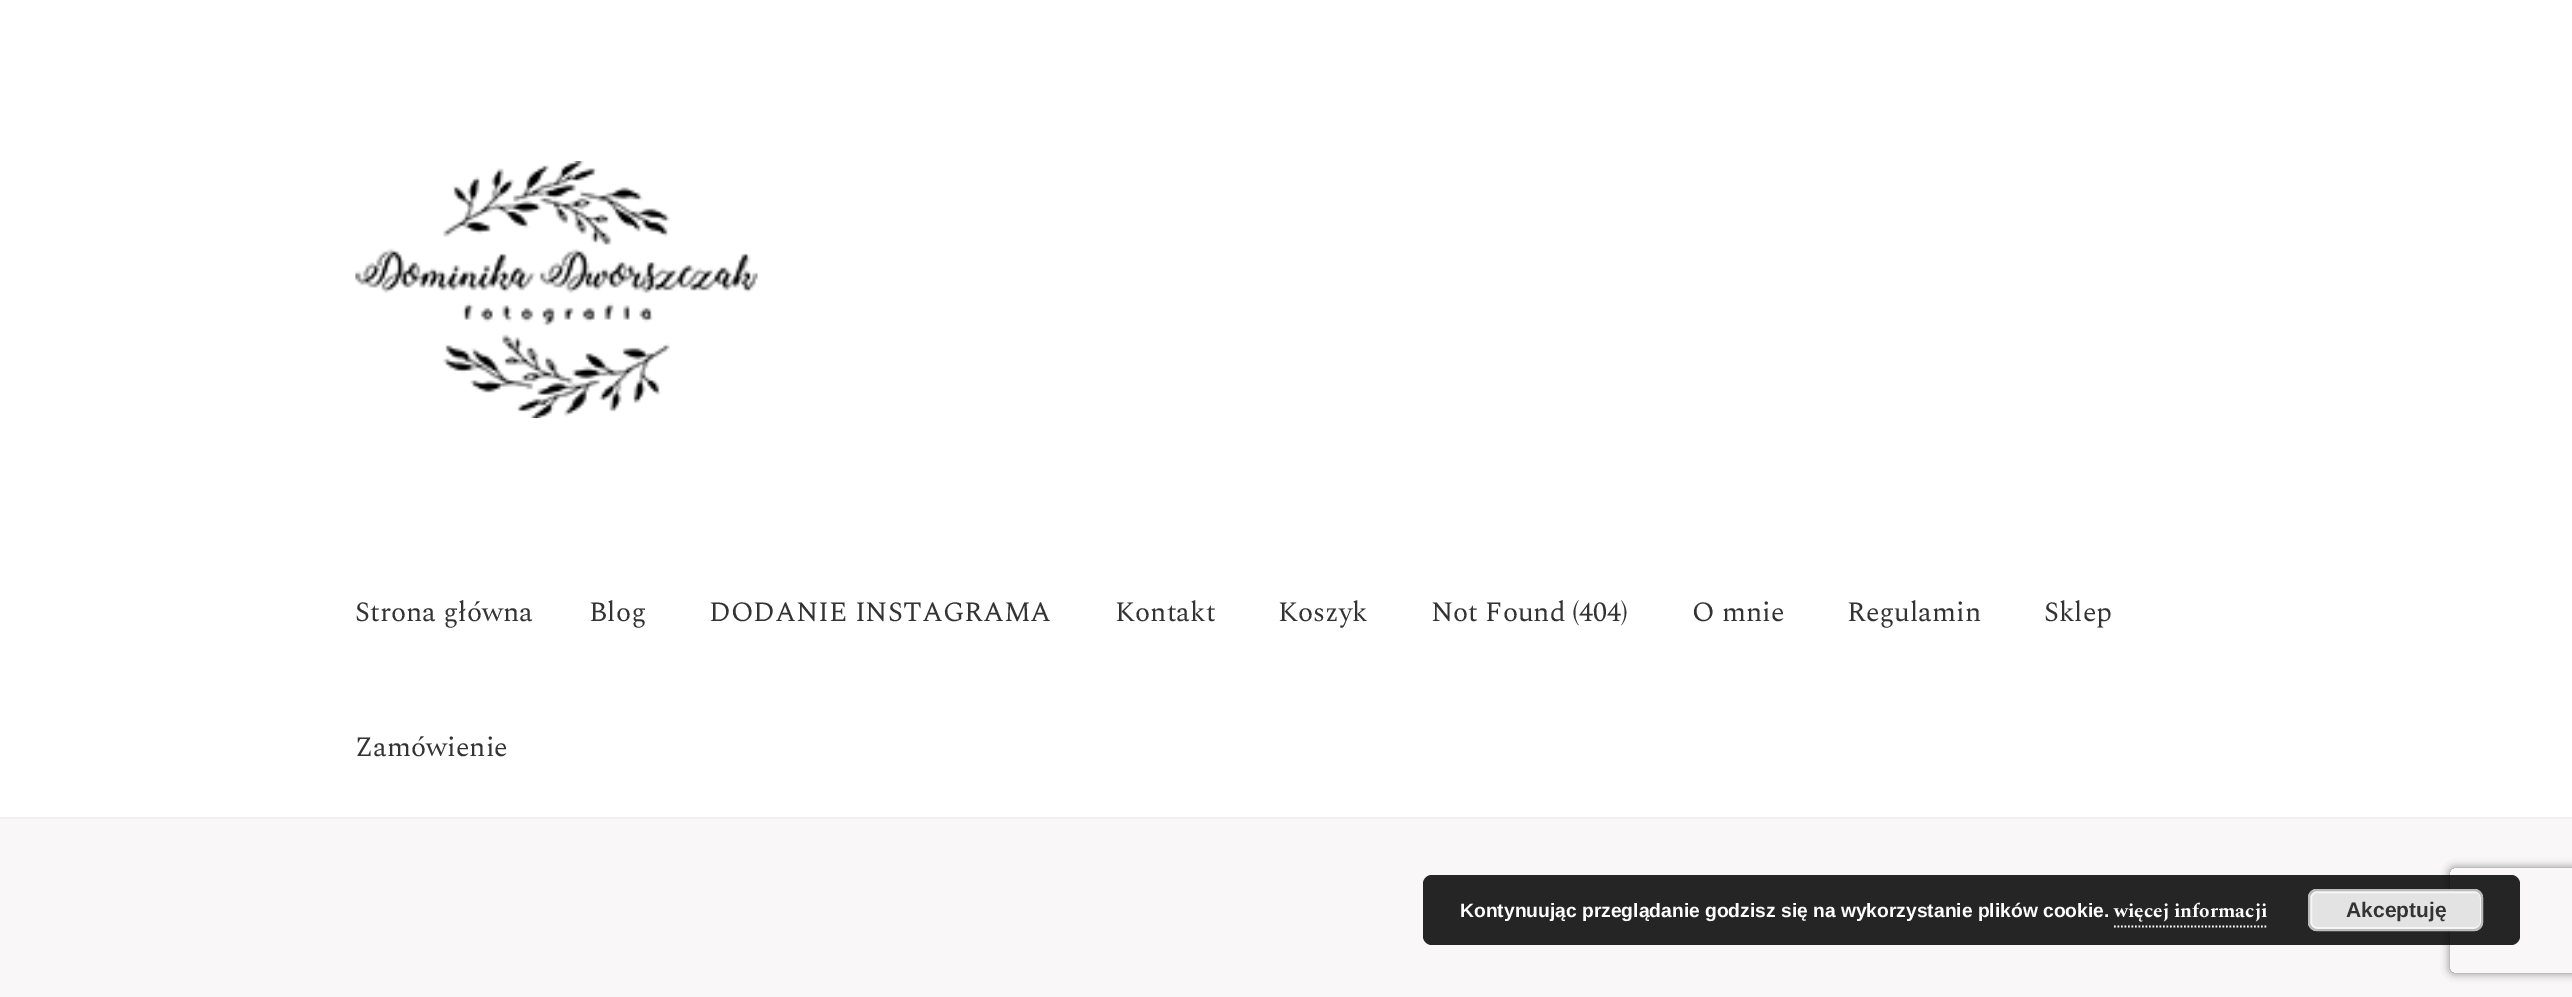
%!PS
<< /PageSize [2572 997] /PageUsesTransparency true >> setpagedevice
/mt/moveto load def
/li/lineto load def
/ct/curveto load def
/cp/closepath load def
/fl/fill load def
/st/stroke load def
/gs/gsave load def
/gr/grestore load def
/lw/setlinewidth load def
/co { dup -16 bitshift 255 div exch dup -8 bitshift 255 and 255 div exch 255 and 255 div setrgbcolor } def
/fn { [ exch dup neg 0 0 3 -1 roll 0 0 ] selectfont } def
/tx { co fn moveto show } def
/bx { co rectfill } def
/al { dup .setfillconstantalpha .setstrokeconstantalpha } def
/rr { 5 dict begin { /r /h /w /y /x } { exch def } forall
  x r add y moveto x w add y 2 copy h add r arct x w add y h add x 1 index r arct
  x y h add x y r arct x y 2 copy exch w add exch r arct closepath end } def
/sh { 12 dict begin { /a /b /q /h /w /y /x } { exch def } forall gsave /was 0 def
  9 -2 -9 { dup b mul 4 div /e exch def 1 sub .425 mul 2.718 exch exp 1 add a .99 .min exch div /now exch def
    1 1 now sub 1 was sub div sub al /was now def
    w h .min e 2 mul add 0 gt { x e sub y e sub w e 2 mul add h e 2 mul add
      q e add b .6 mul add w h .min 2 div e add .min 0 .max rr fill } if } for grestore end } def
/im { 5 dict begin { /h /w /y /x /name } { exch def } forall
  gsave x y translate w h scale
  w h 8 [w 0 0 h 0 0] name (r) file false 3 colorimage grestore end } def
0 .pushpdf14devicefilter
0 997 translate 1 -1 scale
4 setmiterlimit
0 0 2572 997 16#F9F7F7 bx
0 0 2572 817 16#FFFFFF bx
0 817 2572 2 16#F0F0F0 bx
(media/1.raw) 355 161 403 258 im
gs
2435 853 mt 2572 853 li 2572 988 li 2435 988 li cp 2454 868 mt 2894 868 li 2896 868 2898 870 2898 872 ct 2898 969 li 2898 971 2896 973 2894 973 ct 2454 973 li 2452 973 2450 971 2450 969 ct 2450 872 li 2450 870 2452 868 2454 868 ct cp eoclip newpath
16#808080 co
2450 868 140 105 4 4.5 1 sh
gr
0.85 al
16#000000 co
1423 875 1097 70 9 rr fl
1 al
16#FFFFFF co
1.8 lw
[1.75 1.75] 0 setdash
2114 926.5 mt 2268 926.5 li st
16#E3E3E3 co
2308 889 175 42 9 rr fl
16#F6F6F6 co
2 lw
[] 0 setdash
2311 892 170 36 6 rr st
16#BBBBBB co
2309 890 173 40 8 rr st
(Strona główna) 355 621 /Spectral-Regular 28 16#333333 tx
(Blog) 589 621 /Spectral-Regular 28 16#333333 tx
(DODANIE INSTAGRAMA) 709 621 /Spectral-Regular 28 16#333333 tx
(Kontakt) 1115 621 /Spectral-Regular 28 16#333333 tx
(Koszyk) 1278 621 /Spectral-Regular 28 16#333333 tx
(Not Found \(404\)) 1431 621 /Spectral-Regular 28 16#333333 tx
(O mnie) 1692 621 /Spectral-Regular 28 16#333333 tx
(Regulamin) 1847 621 /Spectral-Regular 28 16#333333 tx
(Sklep) 2044 621 /Spectral-Regular 28 16#333333 tx
(Zamówienie) 355 756 /Spectral-Regular 28 16#333333 tx
(Kontynuując przeglądanie godzisz się na wykorzystanie plików cookie.) 1460 917 /LiberationSans-Bold 19.25 16#FFFFFF tx
(więcej informacji) 2114 917 /Spectral-Bold 19.25 16#FFFFFF tx
(Akceptuję) 2346 917 /LiberationSans-Bold 21 16#333333 tx
.poppdf14devicefilter showpage
